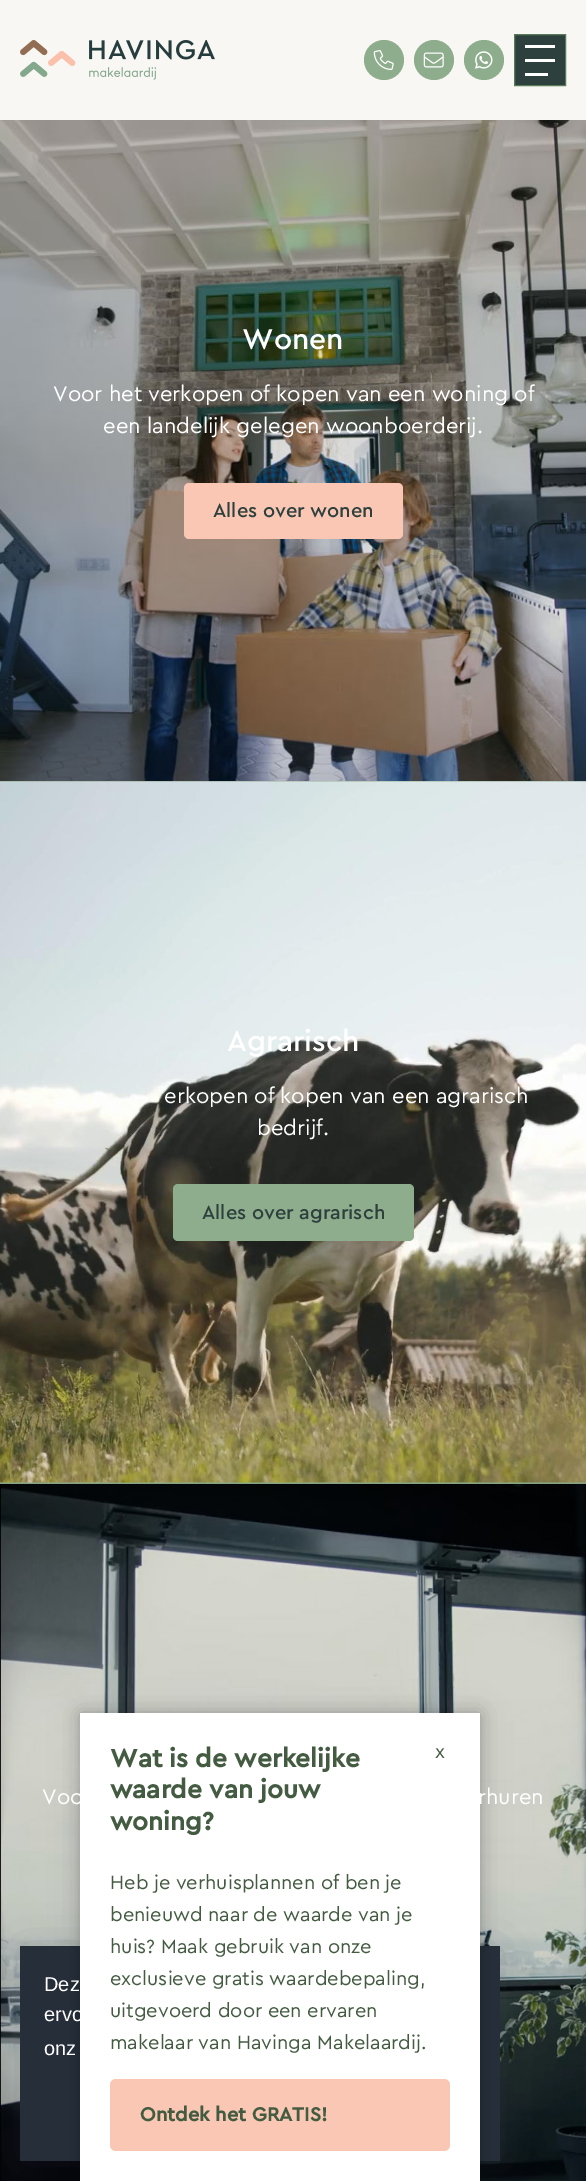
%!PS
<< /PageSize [586 2181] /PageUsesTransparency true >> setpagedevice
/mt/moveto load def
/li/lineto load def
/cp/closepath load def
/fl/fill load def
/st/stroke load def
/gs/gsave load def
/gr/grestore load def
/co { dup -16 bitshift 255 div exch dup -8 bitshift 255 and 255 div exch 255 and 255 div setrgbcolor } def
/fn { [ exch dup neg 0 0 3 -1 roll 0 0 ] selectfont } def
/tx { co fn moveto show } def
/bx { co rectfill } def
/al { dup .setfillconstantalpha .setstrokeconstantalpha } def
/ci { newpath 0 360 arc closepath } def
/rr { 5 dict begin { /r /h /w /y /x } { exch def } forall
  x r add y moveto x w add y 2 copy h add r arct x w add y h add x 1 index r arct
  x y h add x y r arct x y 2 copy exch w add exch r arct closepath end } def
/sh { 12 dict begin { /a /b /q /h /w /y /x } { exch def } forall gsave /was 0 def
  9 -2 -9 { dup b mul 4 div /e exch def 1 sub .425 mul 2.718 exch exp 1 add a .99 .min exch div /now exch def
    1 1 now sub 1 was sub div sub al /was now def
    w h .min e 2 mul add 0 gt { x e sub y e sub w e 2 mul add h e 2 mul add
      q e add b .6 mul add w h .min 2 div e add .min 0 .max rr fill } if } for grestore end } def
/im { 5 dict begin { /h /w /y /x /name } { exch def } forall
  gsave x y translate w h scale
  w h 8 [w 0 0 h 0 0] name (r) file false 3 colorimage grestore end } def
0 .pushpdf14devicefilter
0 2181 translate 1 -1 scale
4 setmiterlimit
0 0 586 2181 16#8EAD8C bx
0 0 586 120 16#F8F7F3 bx
(media/1.raw) 20 40 195 40 im
16#8EAD8C co
384 60 20 ci fl
(media/2.raw) 373 50 21 20 im
434 60 20 ci fl
(media/3.raw) 423 52 21 16 im
484 60 20 ci fl
(media/4.raw) 475 51 18 18 im
16#2E403E co
514.5 34.5 mt 565.5 34.5 li 565.5 85.5 li 514.5 85.5 li cp gs fl gr
16#5A7B58 co
st
525 45 30 3 16#FFFFFF bx
525 59 30 3 16#FFFFFF bx
525 73 23 3 16#FFFFFF bx
(media/5.raw) 0 120 586 662 im
16#F9C7B3 co
184 483 219 56 5 rr fl
(media/6.raw) 0 781 586 702 im
16#8EAD8C co
173 1184 241 57 5 rr fl
(media/7.raw) 0 1483 586 698 im
16#3D4154 co
20 1946 480 215 0 25 .2 sh
20 1946 480 215 16#252E39 bx
16#000000 co
80 1713 400 468 0 15 .1 sh
80 1713 400 468 0 7.5 .2 sh
80 1713 400 468 16#FFFFFF bx
16#F9C7B3 co
110 2079 340 72 6 rr fl
(Wonen) 242 349 /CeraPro-Medium 30 16#FFFFFF tx
(Voor het verkopen of kopen van een woning of) 53 401 /CeraPro-Regular 22 16#FFFFFF tx
(een landelijk gelegen woonboerderij.) 103 433 /CeraPro-Regular 22 16#FFFFFF tx
(Alles over wonen) 213 517 /CeraPro-Medium 20 16#2E403E tx
(Agrarisch) 227 1051 /CeraPro-Medium 30 16#FFFFFF tx
(erkopen of kopen van een agrarisch) 164 1103 /CeraPro-Regular 22 16#FFFFFF tx
(bedrijf.) 257 1135 /CeraPro-Regular 22 16#FFFFFF tx
(Alles over agrarisch) 202 1219 /CeraPro-Medium 20 16#2E403E tx
(Voo) 42 1804 /CeraPro-Regular 22 16#FFFFFF tx
(rhuren) 478 1804 /CeraPro-Regular 22 16#FFFFFF tx
(Dez) 44 1991 /LiberationSans-Regular 20 16#FFFFFF tx
(ervo) 44 2021 /LiberationSans-Regular 20 16#FFFFFF tx
(onz) 44 2055 /LiberationSans-Regular 20 16#FFFFFF tx
(Wat is de werkelijke) 110 1767 /CeraPro-Bold 26.25 16#435B40 tx
(waarde van jouw) 110 1798 /CeraPro-Bold 26.25 16#435B40 tx
(woning?) 110 1830 /CeraPro-Bold 26.25 16#435B40 tx
(Heb je verhuisplannen of ben je) 110 1889 /CeraPro-Regular 20 16#435B40 tx
(benieuwd naar de waarde van je) 110 1921 /CeraPro-Regular 20 16#435B40 tx
(huis? Maak gebruik van onze) 110 1953 /CeraPro-Regular 20 16#435B40 tx
(exclusieve gratis waardebepaling,) 110 1985 /CeraPro-Regular 20 16#435B40 tx
(uitgevoerd door een ervaren) 110 2017 /CeraPro-Regular 20 16#435B40 tx
(makelaar van Havinga Makelaardij.) 110 2049 /CeraPro-Regular 20 16#435B40 tx
(Ontdek het GRATIS!) 140 2121 /CeraPro-Bold 20 16#435B40 tx
(x) 435 1758 /CeraPro-Regular 20 16#435B40 tx
.poppdf14devicefilter showpage
